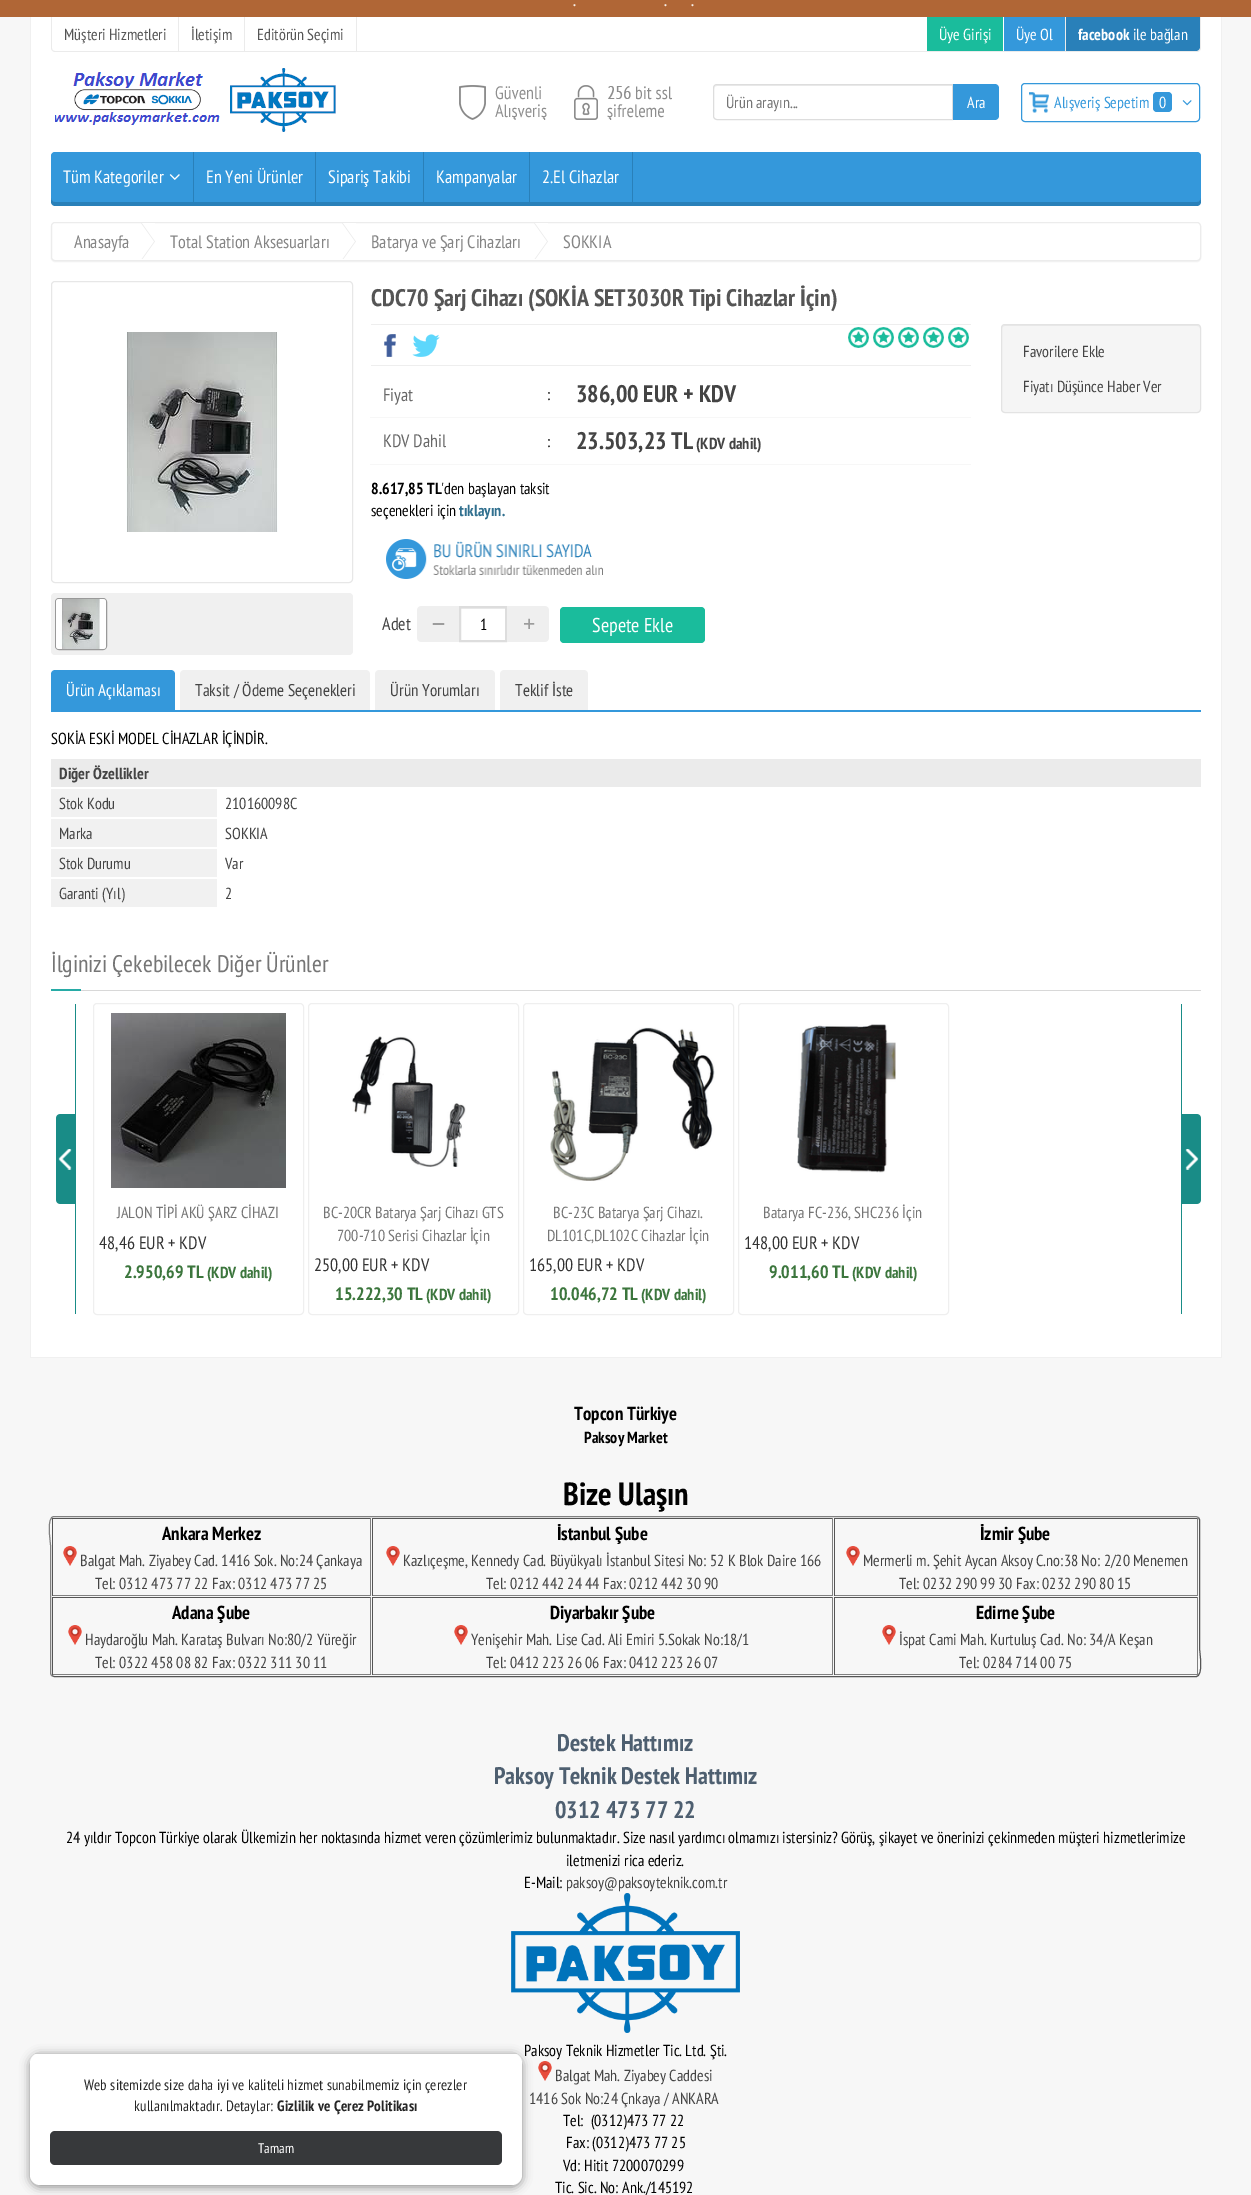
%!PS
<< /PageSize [1251 2195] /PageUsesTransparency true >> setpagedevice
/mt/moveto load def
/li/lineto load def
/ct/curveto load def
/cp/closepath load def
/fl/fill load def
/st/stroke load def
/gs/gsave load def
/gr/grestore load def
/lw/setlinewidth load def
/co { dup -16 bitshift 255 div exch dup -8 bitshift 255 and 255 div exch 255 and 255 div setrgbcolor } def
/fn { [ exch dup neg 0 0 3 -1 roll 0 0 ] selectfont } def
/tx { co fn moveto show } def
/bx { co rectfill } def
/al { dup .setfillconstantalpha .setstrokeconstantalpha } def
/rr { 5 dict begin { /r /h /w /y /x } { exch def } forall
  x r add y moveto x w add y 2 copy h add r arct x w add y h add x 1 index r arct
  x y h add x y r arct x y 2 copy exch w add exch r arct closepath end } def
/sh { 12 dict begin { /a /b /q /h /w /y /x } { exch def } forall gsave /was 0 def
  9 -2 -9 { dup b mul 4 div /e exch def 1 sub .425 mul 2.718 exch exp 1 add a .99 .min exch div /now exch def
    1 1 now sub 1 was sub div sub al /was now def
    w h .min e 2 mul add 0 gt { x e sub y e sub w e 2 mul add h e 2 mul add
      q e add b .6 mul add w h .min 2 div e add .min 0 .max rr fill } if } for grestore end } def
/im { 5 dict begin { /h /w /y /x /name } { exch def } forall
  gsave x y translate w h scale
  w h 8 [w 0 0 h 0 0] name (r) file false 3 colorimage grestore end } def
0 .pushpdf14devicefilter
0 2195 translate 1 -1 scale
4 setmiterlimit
0 0 1251 2195 16#F7F7F7 bx
0 0 1251 17 16#B06636 bx
31 17 1190 1340 16#FFFFFF bx
1221 17 1 1340 16#F0F0F0 bx
30 17 1 1340 16#F0F0F0 bx
16#EBEBEB co
51 17 mt 1201 17 li 1201 48 li 1201 50 1199 52 1197 52 ct 55 52 li 53 52 51 50 51 48 ct cp 52 17 mt 1200 17 li 1200 48 li 1200 50 1199 51 1197 51 ct 55 51 li 53 51 52 50 52 48 ct cp eofill
178 17 1 34 16#EBEBEB bx
244 17 1 34 16#EBEBEB bx
356 17 1 34 16#EBEBEB bx
927 17 76 34 16#1ABC9C bx
1004 17 61 34 16#3498DB bx
16#2980B9 co
1065 17 mt 1200 17 li 1200 47 li 1200 49 1198 51 1196 51 ct 1065 51 li cp fl
1065 17 1 34 16#EBEBEB bx
(media/1.raw) 55 68 281 64 im
(media/2.raw) 459 85 213 35 im
16#ECECEC co
717 86 mt 952 86 li 952 85 li 717 85 li 715 85 714 87 714 89 ct 714 87 715 86 717 86 ct cp fl
16#DDDDDD co
717 84.5 mt 952.5 84.5 li 952.5 119.5 li 717 119.5 li 715 119.5 713.5 118 713.5 116 ct 713.5 88 li 713.5 86 715 84.5 717 84.5 ct cp st
16#3498DB co
953 84 mt 995 84 li 997 84 999 86 999 88 ct 999 116 li 999 118 997 120 995 120 ct 953 120 li cp fl
(media/3.raw) 1029 92 20 21 im
1021.5 83.5 178 38 3.5 rr st
1153 92 19 20 4 rr fl
(media/4.raw) 1182 100 10 6 im
51 152 1150 50 4 rr fl
16#2980B9 co
51 198 mt 51 202 li 51 204 53 206 55 206 ct 1197 206 li 1199 206 1201 204 1201 202 ct 1201 198 li 1201 200 1199 202 1197 202 ct 55 202 li 53 202 51 200 51 198 ct cp fl
193 152 1 50 16#2980B9 bx
(media/5.raw) 169 174 11 6 im
315 152 1 50 16#2980B9 bx
423 152 1 50 16#2980B9 bx
529 152 1 50 16#2980B9 bx
632 152 1 50 16#2980B9 bx
16#888888 co
30 2055 492 132 10 5 1 sh
16#FFFFFF co
30 2053 492 132 10 rr fl
35 2053 482 1 16#CCCCCC bx
16#37393B co
50 2131 452 34 5 rr fl
gs
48 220 mt 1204 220 li 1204 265 li 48 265 li cp 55 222 mt 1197 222 li 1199 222 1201 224 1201 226 ct 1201 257 li 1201 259 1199 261 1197 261 ct 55 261 li 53 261 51 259 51 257 ct 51 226 li 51 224 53 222 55 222 ct cp eoclip newpath
16#000000 co
51 223 1150 39 4 .5 .05 sh
gr
16#ECECEC co
51.5 222.5 1149 38 3.5 rr st
(media/6.raw) 141 223 14 36 im
(media/6.raw) 342 223 14 36 im
(media/6.raw) 534 223 14 36 im
16#E7E7E7 co
51.5 281.5 301 301 3.5 rr st
(media/7.raw) 126 332 152 200 im
16#F0F0F0 co
51 593 302 62 4 rr fl
16#999999 co
55.5 598.5 51 51 3.5 rr st
(media/8.raw) 56 599 50 50 im
371 324 600 1 16#EEEEEE bx
371 365 600 1 16#EEEEEE bx
(media/9.raw) 384 334 12 23 im
(media/10.raw) 412 334 28 23 im
(media/11.raw) 848 327 121 21 im
16#F5F5F5 co
1001 324 200 89 4 rr fl
16#E9E9E9 co
1005 326 mt 1197 326 li 1199 326 1200 327 1200 329 ct 1200 327 1199 325 1197 325 ct 1005 325 li 1003 325 1002 327 1002 329 ct 1002 327 1003 326 1005 326 ct cp fl
16#E3E3E3 co
1001.5 324.5 199 88 3.5 rr st
370 417 601 1 16#F7F7F7 bx
370 464 601 1 16#F7F7F7 bx
(media/12.raw) 386 539 217 40 im
(media/13.raw) 417 606 42 36 im
461 608 44 1 16#ECECEC bx
16#DDDDDD co
2 lw
460 607 46 34 rectstroke
(media/14.raw) 507 606 42 36 im
16#1ABC9C co
560 607 145 36 4 rr fl
51 710 1150 2 16#3498DB bx
55 670 mt 171 670 li 173 670 175 672 175 674 ct 175 710 li 51 710 li 51 674 li 51 672 53 670 55 670 ct cp fl
16#F0F0F0 co
184 670 mt 366 670 li 368 670 370 672 370 674 ct 370 710 li 180 710 li 180 674 li 180 672 182 670 184 670 ct cp fl
379 670 mt 491 670 li 493 670 495 672 495 674 ct 495 710 li 375 710 li 375 674 li 375 672 377 670 379 670 ct cp fl
504 670 mt 584 670 li 586 670 588 672 588 674 ct 588 710 li 500 710 li 500 674 li 500 672 502 670 504 670 ct cp fl
51 759 1150 28 16#EBEBEB bx
51 789 166 28 16#F1F1F1 bx
51 819 166 28 16#F1F1F1 bx
51 849 166 28 16#F1F1F1 bx
51 879 166 28 16#F1F1F1 bx
(media/15.raw) 51 989 1150 2 im
(media/16.raw) 56 1004 20 310 im
16#EFEFEF co
1 lw
93.5 1003.5 210 311 3.5 rr st
(media/17.raw) 111 1013 175 175 im
308.5 1003.5 210 311 3.5 rr st
(media/18.raw) 352 1036 114 131 im
523.5 1003.5 210 311 3.5 rr st
(media/19.raw) 550 1027 165 154 im
738.5 1003.5 210 311 3.5 rr st
(media/20.raw) 797 1024 99 149 im
(media/21.raw) 1181 1004 20 310 im
30 1357 1192 1 16#F0F0F0 bx
16#555555 co
1198.5 1517.5 mt 1199.5 1519.5 li 1199.5 1647.5 li 1199.5 1651.5 1204 1676.5 1196 1676.5 ct 54 1676.5 li 51.5 1675.5 li st
16#808080 co
51.5 1675.5 mt 50.5 1673.5 li 50.5 1545.5 li 50.5 1541.5 46 1516.5 54 1516.5 ct 1196 1516.5 li 1198.5 1517.5 li st
52 1518 319 1 16#555555 bx
370 1518 1 78 16#808080 bx
52 1595 319 1 16#808080 bx
52 1518 1 78 16#555555 bx
(media/22.raw) 63 1546 14 20 im
372 1518 461 1 16#555555 bx
832 1518 1 78 16#808080 bx
372 1595 461 1 16#808080 bx
372 1518 1 78 16#555555 bx
(media/23.raw) 386 1546 14 20 im
834 1518 364 1 16#555555 bx
1197 1518 1 78 16#808080 bx
834 1595 364 1 16#808080 bx
834 1518 1 78 16#555555 bx
(media/22.raw) 846 1546 14 20 im
52 1597 319 1 16#555555 bx
370 1597 1 78 16#808080 bx
52 1674 319 1 16#808080 bx
52 1597 1 78 16#555555 bx
(media/22.raw) 68 1625 14 20 im
372 1597 461 1 16#555555 bx
832 1597 1 78 16#808080 bx
372 1674 461 1 16#808080 bx
372 1597 1 78 16#555555 bx
(media/23.raw) 454 1625 14 20 im
834 1597 364 1 16#555555 bx
1197 1597 1 78 16#808080 bx
834 1674 364 1 16#808080 bx
834 1597 1 78 16#555555 bx
(media/22.raw) 882 1625 14 20 im
(media/24.raw) 511 1893 229 140 im
(media/23.raw) 538 2061 14 20 im
(.) 573 6 /PTSansNarrow-Bold 14 16#F7F0EB tx
(.) 664 6 /PTSansNarrow-Bold 14 16#F7F0EB tx
(.) 691 6 /PTSansNarrow-Bold 14 16#F7F0EB tx
(Müşteri Hizmetleri) 64 40 /PTSansNarrow-Regular 16 16#555555 tx
(İletişim) 191 40 /PTSansNarrow-Regular 16 16#555555 tx
(Editörün Seçimi) 257 40 /PTSansNarrow-Regular 16 16#555555 tx
(Üye Girişi) 939 40 /PTSansNarrow-Regular 16 16#FFFFFF tx
(Üye Ol) 1016 40 /PTSansNarrow-Regular 16 16#FFFFFF tx
(facebook) 1078 40 /PTSansNarrow-Bold 16 16#FFFFFF tx
(ile bağlan) 1133 40 /PTSansNarrow-Regular 16 16#FFFFFF tx
(Ürün arayın...) 726 108 /PTSansNarrow-Regular 16 16#757575 tx
(Ara) 967 108 /PTSansNarrow-Regular 16 16#FFFFFF tx
(Alışveriş Sepetim) 1054 108 /PTSansNarrow-Regular 16 16#3498DB tx
(0) 1159 108 /PTSansNarrow-Regular 16 16#FFFFFF tx
(Tüm Kategoriler) 63 183 /PTSansNarrow-Regular 18 16#FFFFFF tx
(En Yeni Ürünler) 206 183 /PTSansNarrow-Regular 18 16#FFFFFF tx
(Sipariş Takibi) 328 183 /PTSansNarrow-Regular 18 16#FFFFFF tx
(Kampanyalar) 436 183 /PTSansNarrow-Regular 18 16#FFFFFF tx
(2.El Cihazlar) 542 183 /PTSansNarrow-Regular 18 16#FFFFFF tx
/PTSansNarrow-Regular 15 fn
16#262626 co
84 2090 mt .1 0 (Web sitemizde size daha iyi ve kaliteli hizmet sunabilmemiz için çerezler) ashow
134 2111 mt .1 0 (kullanılmaktadır. Detaylar:) ashow
/PTSansNarrow-Bold 15 fn
277 2111 mt .1 0 (Gizlilik ve Çerez Politikası) ashow
(Tamam) 258 2153 /PTSansNarrow-Regular 14 16#FFFFFF tx
(Anasayfa) 74 248 /PTSansNarrow-Regular 18 16#858585 tx
(Total Station Aksesuarları) 170 248 /PTSansNarrow-Regular 18 16#858585 tx
(Batarya ve Şarj Cihazları) 371 248 /PTSansNarrow-Regular 18 16#858585 tx
(SOKKIA) 563 248 /PTSansNarrow-Regular 18 16#858585 tx
(CDC70 Şarj Cihazı \(SOKİA SET3030R Tipi Cihazlar İçin\)) 371 306 /PTSansNarrow-Bold 24 16#555555 tx
(Favorilere Ekle) 1023 357 /PTSansNarrow-Regular 16 16#444444 tx
(Fiyatı Düşünce Haber Ver) 1023 392 /PTSansNarrow-Regular 16 16#444444 tx
(Fiyat) 383 401 /PTSansNarrow-Regular 18 16#686868 tx
(:) 547 400 /PTSansNarrow-Regular 16 16#000000 tx
(386,00 EUR + KDV) 576 402 /PTSansNarrow-Bold 24 16#444444 tx
(KDV Dahil) 383 447 /PTSansNarrow-Regular 18 16#686868 tx
(:) 547 447 /PTSansNarrow-Regular 16 16#000000 tx
(23.503,23 TL) 576 449 /PTSansNarrow-Bold 24 16#444444 tx
(\(KDV dahil\)) 696 449 /PTSansNarrow-Bold 16 16#444444 tx
(8.617,85 TL) 371 494 /PTSansNarrow-Bold 16 16#000000 tx
('den başlayan taksit) 441 494 /PTSansNarrow-Regular 16 16#000000 tx
(seçenekleri için) 371 516 /PTSansNarrow-Regular 16 16#000000 tx
(tıklayın.) 459 516 /PTSansNarrow-Bold 16 16#31708F tx
(Adet) 382 630 /PTSansNarrow-Regular 18 16#444444 tx
(1) 480 630 /PTSansNarrow-Regular 16 16#000000 tx
(Sepete Ekle) 592 632 /PTSansNarrow-Regular 20 16#FFFFFF tx
(Ürün Açıklaması) 66 696 /PTSansNarrow-Regular 17 16#FFFFFF tx
(Taksit / Ödeme Seçenekleri) 195 696 /PTSansNarrow-Regular 17 16#444444 tx
(Ürün Yorumları) 390 696 /PTSansNarrow-Regular 17 16#444444 tx
(Teklif İste) 515 696 /PTSansNarrow-Regular 17 16#444444 tx
(SOKİA ESKİ MODEL CİHAZLAR İÇİNDİR.) 51 744 /PTSansNarrow-Regular 16 16#000000 tx
(Diğer Özellikler) 59 779 /PTSansNarrow-Bold 16 16#444444 tx
(Stok Kodu) 59 809 /PTSansNarrow-Regular 16 16#444444 tx
(210160098C) 225 809 /PTSansNarrow-Regular 16 16#444444 tx
(Marka) 59 839 /PTSansNarrow-Regular 16 16#444444 tx
(SOKKIA) 225 839 /PTSansNarrow-Regular 16 16#444444 tx
(Stok Durumu) 59 869 /PTSansNarrow-Regular 16 16#444444 tx
(Var) 225 869 /PTSansNarrow-Regular 16 16#444444 tx
(Garanti \(Yıl\)) 59 899 /PTSansNarrow-Regular 16 16#444444 tx
(2) 225 899 /PTSansNarrow-Regular 16 16#444444 tx
(İlginizi Çekebilecek Diğer Ürünler) 51 972 /PTSansNarrow-Regular 24 16#757575 tx
(JALON TİPİ AKÜ ŞARZ CİHAZI) 117 1218 /PTSansNarrow-Regular 16 16#757575 tx
(48,46 EUR + KDV) 99 1249 /PTSansNarrow-Regular 18 16#333333 tx
(2.950,69 TL) 124 1278 /PTSansNarrow-Bold 18 16#3C763D tx
(\(KDV dahil\)) 207 1278 /PTSansNarrow-Bold 16 16#3C763D tx
(BC-20CR Batarya Şarj Cihazı GTS) 323 1218 /PTSansNarrow-Regular 16 16#757575 tx
(700-710 Serisi Cihazlar İçin) 337 1241 /PTSansNarrow-Regular 16 16#757575 tx
(250,00 EUR + KDV) 314 1271 /PTSansNarrow-Regular 18 16#333333 tx
(15.222,30 TL) 335 1300 /PTSansNarrow-Bold 18 16#3C763D tx
(\(KDV dahil\)) 426 1300 /PTSansNarrow-Bold 16 16#3C763D tx
(BC-23C Batarya Şarj Cihazı.) 553 1218 /PTSansNarrow-Regular 16 16#757575 tx
(DL101C,DL102C Cihazlar İçin) 547 1241 /PTSansNarrow-Regular 16 16#757575 tx
(165,00 EUR + KDV) 529 1271 /PTSansNarrow-Regular 18 16#333333 tx
(10.046,72 TL) 550 1300 /PTSansNarrow-Bold 18 16#3C763D tx
(\(KDV dahil\)) 641 1300 /PTSansNarrow-Bold 16 16#3C763D tx
(Batarya FC-236, SHC236 İçin) 763 1218 /PTSansNarrow-Regular 16 16#757575 tx
(148,00 EUR + KDV) 744 1249 /PTSansNarrow-Regular 18 16#333333 tx
(9.011,60 TL) 769 1278 /PTSansNarrow-Bold 18 16#3C763D tx
(\(KDV dahil\)) 852 1278 /PTSansNarrow-Bold 16 16#3C763D tx
(Topcon Türkiye) 574 1420 /PTSansNarrow-Bold 18.75 16#000000 tx
(Paksoy Market) 584 1443 /PTSansNarrow-Bold 16 16#000000 tx
(Bize Ulaşın) 563 1505 /PTSansNarrow-Bold 32 16#000000 tx
(Ankara Merkez) 162 1540 /PTSansNarrow-Bold 18.75 16#000000 tx
(Balgat Mah. Ziyabey Cad. 1416 Sok. No:24 Çankaya) 80 1566 /PTSansNarrow-Regular 16 16#444444 tx
(Tel: 0312 473 77 22 Fax: 0312 473 77 25) 95 1589 /PTSansNarrow-Regular 16 16#444444 tx
(İstanbul Şube) 557 1540 /PTSansNarrow-Bold 18.75 16#000000 tx
(Kazlıçeşme, Kennedy Cad. Büyükyalı İstanbul Sitesi No: 52 K Blok Daire 166) 403 1566 /PTSansNarrow-Regular 16 16#444444 tx
(Tel: 0212 442 24 44 Fax: 0212 442 30 90) 486 1589 /PTSansNarrow-Regular 16 16#444444 tx
(İzmir Şube) 980 1540 /PTSansNarrow-Bold 18.75 16#000000 tx
(Mermerli m. Şehit Aycan Aksoy C.no:38 No: 2/20 Menemen) 863 1566 /PTSansNarrow-Regular 16 16#444444 tx
(Tel: 0232 290 99 30 Fax: 0232 290 80 15) 899 1589 /PTSansNarrow-Regular 16 16#444444 tx
(Adana Şube) 172 1619 /PTSansNarrow-Bold 18.75 16#000000 tx
(Haydaroğlu Mah. Karataş Bulvarı No:80/2 Yüreğir) 85 1645 /PTSansNarrow-Regular 16 16#444444 tx
(Tel: 0322 458 08 82 Fax: 0322 311 30 11) 95 1668 /PTSansNarrow-Regular 16 16#444444 tx
(Diyarbakır Şube) 550 1619 /PTSansNarrow-Bold 18.75 16#000000 tx
(Yenişehir Mah. Lise Cad. Ali Emiri 5.Sokak No:18/1) 471 1645 /PTSansNarrow-Regular 16 16#444444 tx
(Tel: 0412 223 26 06 Fax: 0412 223 26 07) 486 1668 /PTSansNarrow-Regular 16 16#444444 tx
(Edirne Şube) 976 1619 /PTSansNarrow-Bold 18.75 16#000000 tx
(İspat Cami Mah. Kurtuluş Cad. No: 34/A Keşan) 899 1645 /PTSansNarrow-Regular 16 16#444444 tx
(Tel: 0284 714 00 75) 959 1668 /PTSansNarrow-Regular 16 16#444444 tx
(Destek Hattımız) 557 1751 /PTSansNarrow-Bold 24 16#4E5F70 tx
(Paksoy Teknik Destek Hattımız) 494 1784 /PTSansNarrow-Bold 24 16#4E5F70 tx
(0312 473 77 22) 555 1818 /PTSansNarrow-Bold 24 16#4E5F70 tx
(24 yıldır Topcon Türkiye olarak Ülkemizin her noktasında hizmet veren çözümlerimiz bulunmaktadır. Size nasıl yardımcı olmamızı istersiniz? Görüş, şikayet ve önerinizi çekinmeden müşteri hizmetlerimize) 66 1843 /PTSansNarrow-Regular 16 16#000000 tx
(iletmenizi rica ederiz.) 566 1866 /PTSansNarrow-Regular 16 16#000000 tx
(E-Mail:) 524 1888 /PTSansNarrow-Regular 16 16#000000 tx
(paksoy@paksoyteknik.com.tr) 566 1888 /PTSansNarrow-Regular 16 16#444444 tx
(Paksoy Teknik Hizmetler Tic. Ltd. Şti.) 524 2056 /PTSansNarrow-Regular 16 16#000000 tx
(Balgat Mah. Ziyabey Caddesi) 555 2081 /PTSansNarrow-Regular 16 16#444444 tx
(1416 Sok No:24 Çnkaya / ANKARA) 529 2104 /PTSansNarrow-Regular 16 16#444444 tx
(Tel:  \(0312\)473 77 22) 563 2126 /PTSansNarrow-Regular 16 16#000000 tx
(Fax: \(0312\)473 77 25) 566 2148 /PTSansNarrow-Regular 16 16#000000 tx
(Vd: Hitit 7200070299) 563 2171 /PTSansNarrow-Regular 16 16#000000 tx
(Tic. Sic. No: Ank./145192) 555 2193 /PTSansNarrow-Regular 16 16#000000 tx
.poppdf14devicefilter showpage
